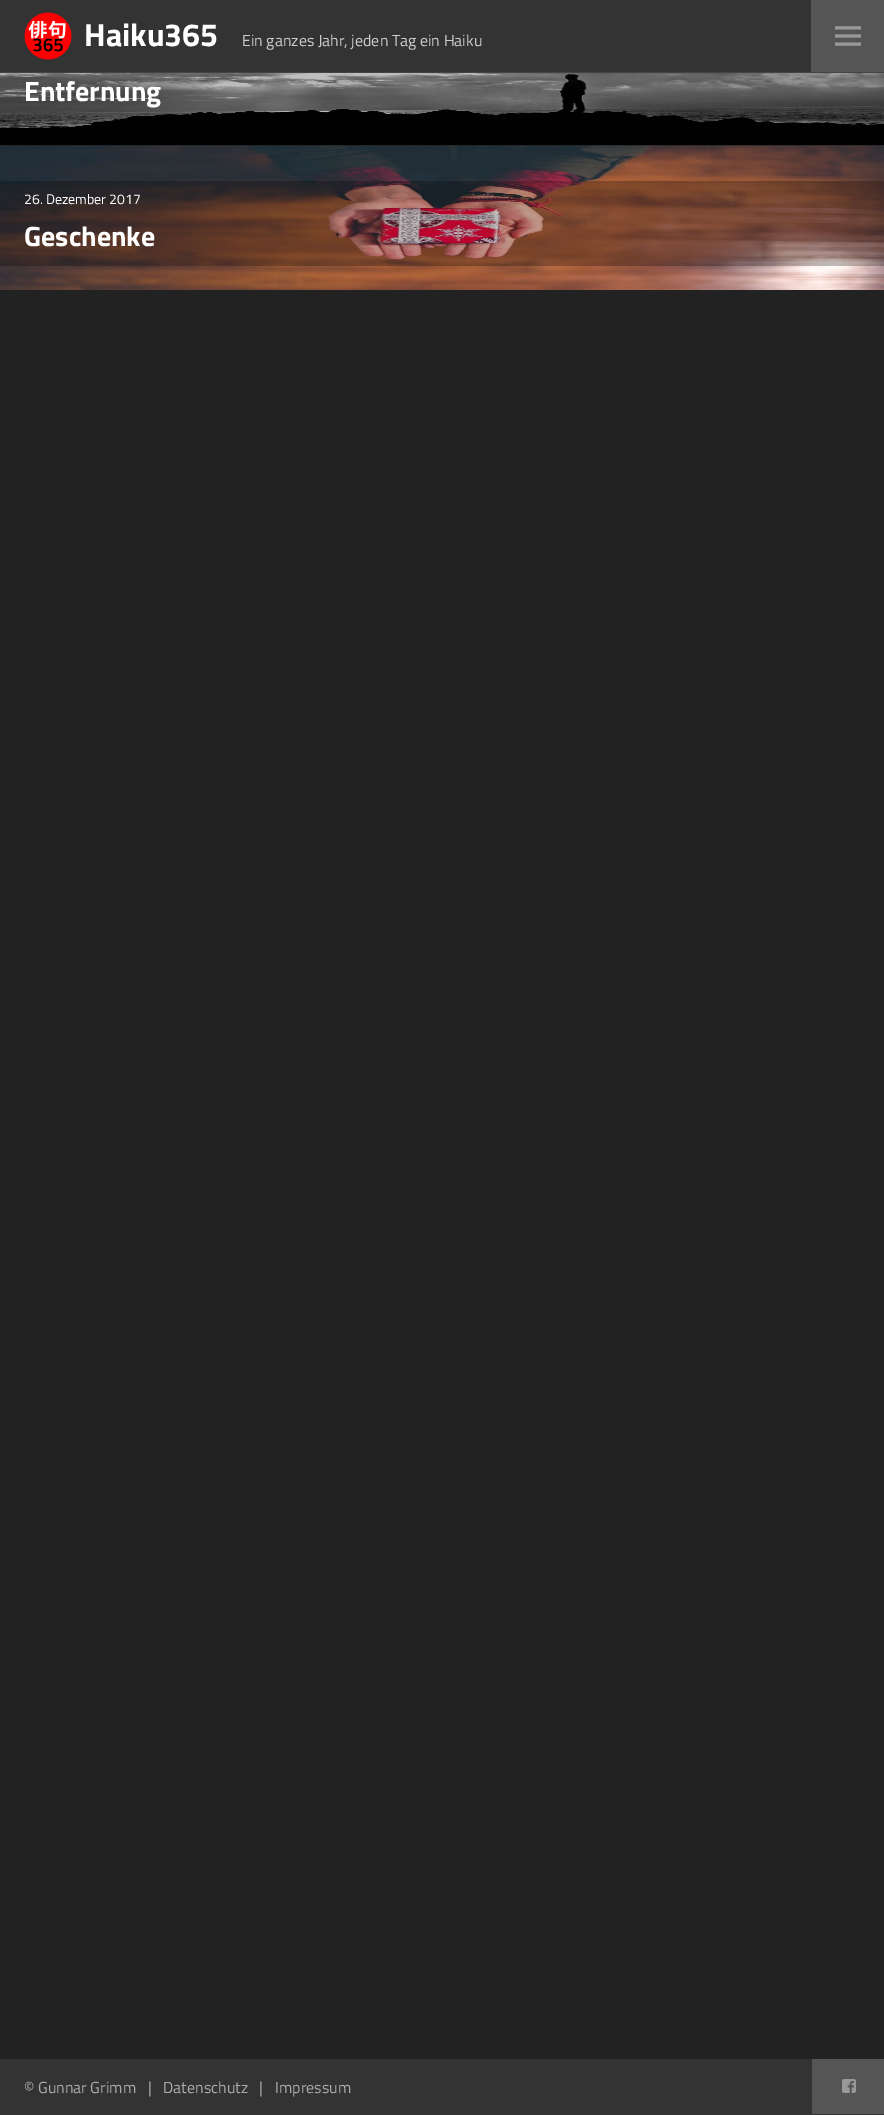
%!PS
<< /PageSize [884 2115] /PageUsesTransparency true >> setpagedevice
/co { dup -16 bitshift 255 div exch dup -8 bitshift 255 and 255 div exch 255 and 255 div setrgbcolor } def
/fn { [ exch dup neg 0 0 3 -1 roll 0 0 ] selectfont } def
/tx { co fn moveto show } def
/bx { co rectfill } def
/al { dup .setfillconstantalpha .setstrokeconstantalpha } def
/im { 5 dict begin { /h /w /y /x /name } { exch def } forall
  gsave x y translate w h scale
  w h 8 [w 0 0 h 0 0] name (r) file false 3 colorimage grestore end } def
0 .pushpdf14devicefilter
0 2115 translate 1 -1 scale
4 setmiterlimit
0 0 884 2115 16#222222 bx
0 0 811 72 16#333333 bx
0 72 884 1 16#444444 bx
(media/1.raw) 24 12 48 48 im
811 0 73 72 16#555555 bx
(media/2.raw) 835 26 26 20 im
(media/3.raw) 0 73 884 72 im
0.25 al
0 73 884 48 16#000000 bx
1 al
(media/4.raw) 0 145 884 145 im
0.25 al
0 181 884 85 16#000000 bx
1 al
0 2059 884 56 16#333333 bx
812 2059 72 55 16#555555 bx
(media/5.raw) 842 2079 14 14 im
(Haiku365) 84 46 /TitilliumWeb-Bold 32 16#FFFFFF tx
(Ein ganzes Jahr, jeden Tag ein Haiku) 242 46 /TitilliumWeb-Regular 16 16#CCCCCC tx
(Entfernung) 24 101 /TitilliumWeb-Bold 28 16#FFFFFF tx
(26. Dezember 2017) 24 204 /TitilliumWeb-Regular 14 16#FFFFFF tx
(Geschenke) 24 246 /TitilliumWeb-Bold 28 16#FFFFFF tx
(© Gunnar Grimm) 24 2093 /TitilliumWeb-Regular 16 16#AAAAAA tx
(|) 148 2093 /TitilliumWeb-Regular 16 16#AAAAAA tx
(Datenschutz) 163 2093 /TitilliumWeb-Regular 16 16#AAAAAA tx
(|) 259 2093 /TitilliumWeb-Regular 16 16#AAAAAA tx
(Impressum) 275 2093 /TitilliumWeb-Regular 16 16#AAAAAA tx
.poppdf14devicefilter showpage
